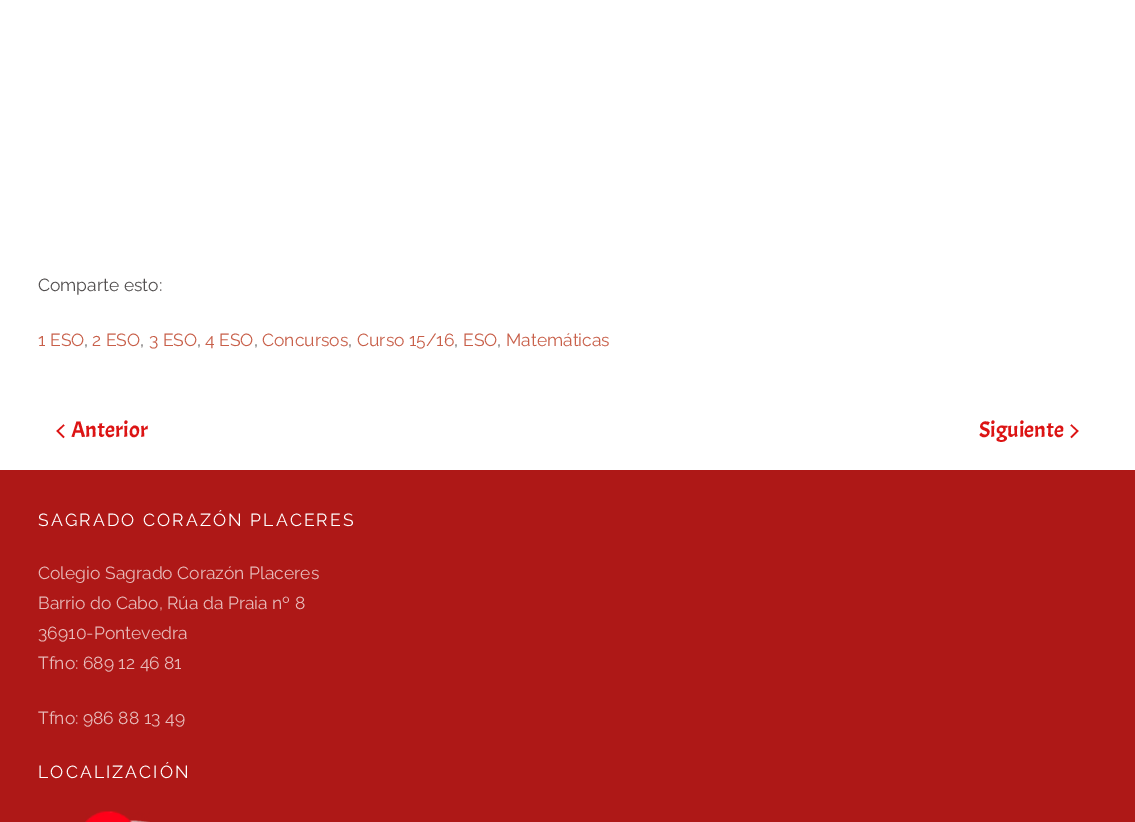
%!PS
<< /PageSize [1135 822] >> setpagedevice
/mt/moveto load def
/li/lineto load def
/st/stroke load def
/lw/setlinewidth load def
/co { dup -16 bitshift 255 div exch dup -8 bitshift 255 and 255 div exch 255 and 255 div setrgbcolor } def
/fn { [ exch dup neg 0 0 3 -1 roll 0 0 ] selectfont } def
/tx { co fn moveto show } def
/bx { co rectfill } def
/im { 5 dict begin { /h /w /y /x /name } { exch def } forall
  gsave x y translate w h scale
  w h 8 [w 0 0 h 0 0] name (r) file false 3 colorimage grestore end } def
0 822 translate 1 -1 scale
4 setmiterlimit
0 0 1135 822 16#FFFFFF bx
16#DC1414 co
1.5 lw
64 425 mt 57.5 431 li 64 437.5 li st
1071 425 mt 1077.5 431 li 1071 437.5 li st
0 470 1135 352 16#AE1817 bx
(media/1.raw) 85 811 65 11 im
(Comparte esto:) 38 291 /Raleway-Thin 17.5 16#524F4F tx
(1 ESO) 38 346 /Raleway-Thin 17.5 16#C85F49 tx
(,) 84 346 /Raleway-Thin 17.5 16#524F4F tx
(2 ESO) 92 346 /Raleway-Thin 17.5 16#C85F49 tx
(,) 140 346 /Raleway-Thin 17.5 16#524F4F tx
(3 ESO) 149 346 /Raleway-Thin 17.5 16#C85F49 tx
(,) 197 346 /Raleway-Thin 17.5 16#524F4F tx
(4 ESO) 205 346 /Raleway-Thin 17.5 16#C85F49 tx
(,) 254 346 /Raleway-Thin 17.5 16#524F4F tx
(Concursos) 262 346 /Raleway-Thin 17.5 16#C85F49 tx
(,) 348 346 /Raleway-Thin 17.5 16#524F4F tx
(Curso 15/16) 357 346 /Raleway-Thin 17.5 16#C85F49 tx
(,) 454 346 /Raleway-Thin 17.5 16#524F4F tx
(ESO) 463 346 /Raleway-Thin 17.5 16#C85F49 tx
(,) 497 346 /Raleway-Thin 17.5 16#524F4F tx
(Matemáticas) 506 346 /Raleway-Thin 17.5 16#C85F49 tx
(Anterior) 71 437 /Acme-Regular 22.5 16#DC1414 tx
(Siguiente) 979 437 /Acme-Regular 22.5 16#DC1414 tx
/Raleway-Thin 17.5 fn
16#FFFFFF co
38 526 mt 2.1 0 (SAGRADO CORAZÓN PLACERES) ashow
(Colegio Sagrado Corazón Placeres) 38 579 /Raleway-Thin 17.5 16#E7BAB9 tx
(Barrio do Cabo, Rúa da Praia nº 8) 38 609 /Raleway-Thin 17.5 16#E7BAB9 tx
(36910-Pontevedra) 38 639 /Raleway-Thin 17.5 16#E7BAB9 tx
(Tfno: 689 12 46 81) 38 669 /Raleway-Thin 17.5 16#E7BAB9 tx
(Tfno: 986 88 13 49) 38 724 /Raleway-Thin 17.5 16#E7BAB9 tx
16#FFFFFF co
38 778 mt 2.1 0 (LOCALIZACIÓN) ashow
showpage
